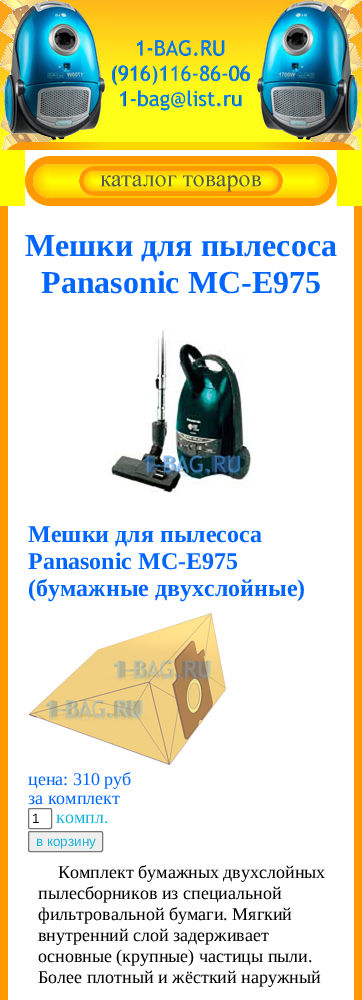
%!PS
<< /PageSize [362 1000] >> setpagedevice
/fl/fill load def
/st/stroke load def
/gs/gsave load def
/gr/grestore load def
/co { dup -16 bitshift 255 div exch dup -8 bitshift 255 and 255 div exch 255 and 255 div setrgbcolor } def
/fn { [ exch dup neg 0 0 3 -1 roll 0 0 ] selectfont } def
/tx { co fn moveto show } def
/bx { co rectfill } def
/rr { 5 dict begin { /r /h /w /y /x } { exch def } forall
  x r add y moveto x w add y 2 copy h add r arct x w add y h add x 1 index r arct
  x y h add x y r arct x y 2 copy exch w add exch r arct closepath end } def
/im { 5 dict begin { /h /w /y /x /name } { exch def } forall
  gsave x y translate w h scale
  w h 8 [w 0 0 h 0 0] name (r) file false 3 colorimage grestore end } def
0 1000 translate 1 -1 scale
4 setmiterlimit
0 0 362 1000 16#FFFFFF bx
(media/1.raw) 0 0 110 150 im
(media/2.raw) 110 0 142 150 im
(media/3.raw) 112 40 139 71 im
(media/4.raw) 252 0 110 150 im
0 150 25 56 16#FFFF00 bx
(media/5.raw) 25 156 25 50 im
(media/6.raw) 50 156 262 50 im
(media/7.raw) 79 166 204 30 im
(media/8.raw) 312 156 25 50 im
337 150 25 56 16#FFFF00 bx
0 206 8 794 16#FF9900 bx
354 206 8 794 16#FF9900 bx
(media/9.raw) 109 328 144 165 im
(media/10.raw) 28 613 199 152 im
16#767676 co
28.5 808.5 23 20 1.5 rr st
16#EFEFEF co
28.5 831.5 74 20 1.5 rr gs fl gr
16#767676 co
st
(Мешки для пылесоса) 25 256 /LiberationSerif-Bold 32 16#0066FF tx
(Panasonic MC-E975) 41 293 /LiberationSerif-Bold 32 16#0066FF tx
(Мешки для пылесоса) 28 542 /LiberationSerif-Bold 24 16#0066FF tx
(Panasonic MC-E975) 28 569 /LiberationSerif-Bold 24 16#0066FF tx
(\(бумажные двухслойные\)) 28 596 /LiberationSerif-Bold 24 16#0066FF tx
(цена: 310 руб) 28 785 /LiberationSerif-Regular 18 16#0066FF tx
(за комплект) 28 804 /LiberationSerif-Regular 18 16#0066FF tx
(1) 32 823 /LiberationSans-Regular 13.5 16#000000 tx
(компл.) 56 823 /LiberationSerif-Regular 18 16#18B4DA tx
(в корзину) 36 846 /LiberationSans-Regular 13.5 16#18B4DA tx
(Комплект бумажных двухслойных) 58 878 /LiberationSerif-Regular 18 16#000000 tx
(пылесборников из специальной) 38 899 /LiberationSerif-Regular 18 16#000000 tx
(фильтровальной бумаги. Мягкий) 38 920 /LiberationSerif-Regular 18 16#000000 tx
(внутренний слой задерживает) 38 941 /LiberationSerif-Regular 18 16#000000 tx
(основные \(крупные\) частицы пыли.) 38 962 /LiberationSerif-Regular 18 16#000000 tx
(Более плотный и жёсткий наружный) 38 983 /LiberationSerif-Regular 18 16#000000 tx
showpage
